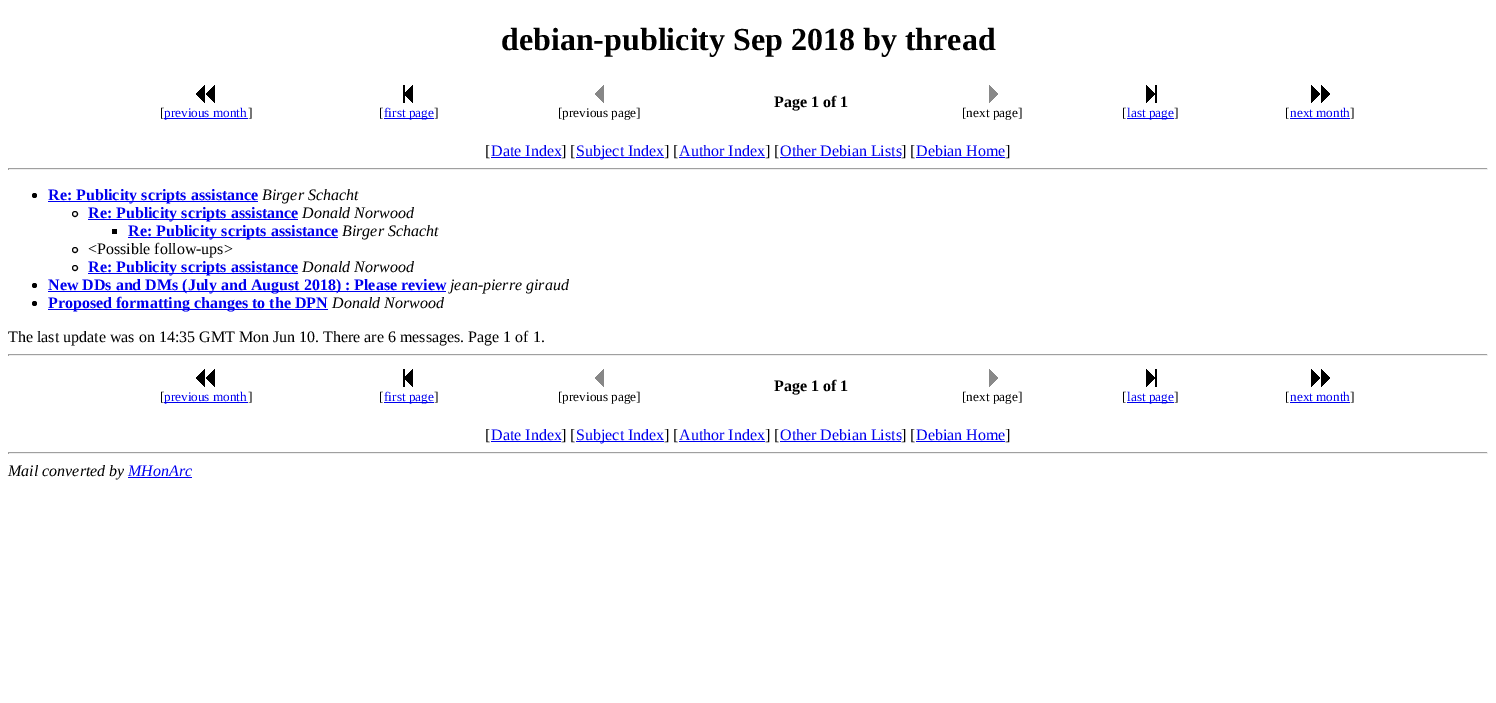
%!PS
<< /PageSize [1496 703] >> setpagedevice
/fl/fill load def
/st/stroke load def
/co { dup -16 bitshift 255 div exch dup -8 bitshift 255 and 255 div exch 255 and 255 div setrgbcolor } def
/fn { [ exch dup neg 0 0 3 -1 roll 0 0 ] selectfont } def
/tx { co fn moveto show } def
/bx { co rectfill } def
/ci { newpath 0 360 arc closepath } def
/im { 5 dict begin { /h /w /y /x /name } { exch def } forall
  gsave x y translate w h scale
  w h 8 [w 0 0 h 0 0] name (r) file false 3 colorimage grestore end } def
0 703 translate 1 -1 scale
4 setmiterlimit
0 0 1496 703 16#FFFFFF bx
(media/1.raw) 196 85 19 18 im
164 118 84 1 16#0000EE bx
(media/2.raw) 403 85 10 18 im
384 118 50 1 16#0000EE bx
(media/3.raw) 595 85 9 18 im
(media/4.raw) 989 85 9 18 im
(media/5.raw) 1146 85 11 18 im
1127 118 47 1 16#0000EE bx
(media/6.raw) 1311 85 19 18 im
1290 118 60 1 16#0000EE bx
491 157 70 1 16#0000EE bx
576 157 88 1 16#0000EE bx
679 157 86 1 16#0000EE bx
780 157 121 1 16#0000EE bx
916 157 89 1 16#0000EE bx
8 168 1480 1 16#9F9F9F bx
1487 168 1 2 16#EEEEEE bx
8 169 1480 1 16#EEEEEE bx
8 168 1 2 16#9F9F9F bx
16#000000 co
34.5 195.5 2.5 ci fl
48 201 210 1 16#0000EE bx
16#000000 co
75 214 2.5 ci st
88 219 210 1 16#0000EE bx
112 229 5 5 16#000000 bx
128 237 210 1 16#0000EE bx
16#000000 co
75 250 2.5 ci st
75 268 2.5 ci st
88 273 210 1 16#0000EE bx
16#000000 co
34.5 285.5 2.5 ci fl
48 291 398 1 16#0000EE bx
16#000000 co
34.5 303.5 2.5 ci fl
48 309 280 1 16#0000EE bx
8 354 1480 1 16#9F9F9F bx
1487 354 1 2 16#EEEEEE bx
8 355 1480 1 16#EEEEEE bx
8 354 1 2 16#9F9F9F bx
(media/1.raw) 196 369 19 18 im
164 402 84 1 16#0000EE bx
(media/2.raw) 403 369 10 18 im
384 402 50 1 16#0000EE bx
(media/3.raw) 595 369 9 18 im
(media/4.raw) 989 369 9 18 im
(media/5.raw) 1146 369 11 18 im
1127 402 47 1 16#0000EE bx
(media/6.raw) 1311 369 19 18 im
1290 402 60 1 16#0000EE bx
491 441 70 1 16#0000EE bx
576 441 88 1 16#0000EE bx
679 441 86 1 16#0000EE bx
780 441 121 1 16#0000EE bx
916 441 89 1 16#0000EE bx
8 452 1480 1 16#9F9F9F bx
1487 452 1 2 16#EEEEEE bx
8 453 1480 1 16#EEEEEE bx
8 452 1 2 16#9F9F9F bx
128 477 64 1 16#0000EE bx
(debian-publicity Sep 2018 by thread) 501 50 /LiberationSerif-Bold 32 16#000000 tx
(Page 1 of 1) 774 107 /LiberationSerif-Bold 16 16#000000 tx
([) 160 117 /LiberationSerif-Regular 13.25 16#000000 tx
(previous month) 164 117 /LiberationSerif-Regular 13.25 16#0000EE tx
(]) 248 117 /LiberationSerif-Regular 13.25 16#000000 tx
([) 379 117 /LiberationSerif-Regular 13.25 16#000000 tx
(first page) 384 117 /LiberationSerif-Regular 13.25 16#0000EE tx
(]) 434 117 /LiberationSerif-Regular 13.25 16#000000 tx
([previous page]) 558 117 /LiberationSerif-Regular 13.25 16#000000 tx
([next page]) 962 117 /LiberationSerif-Regular 13.25 16#000000 tx
([) 1122 117 /LiberationSerif-Regular 13.25 16#000000 tx
(last page) 1127 117 /LiberationSerif-Regular 13.25 16#0000EE tx
(]) 1174 117 /LiberationSerif-Regular 13.25 16#000000 tx
([) 1285 117 /LiberationSerif-Regular 13.25 16#000000 tx
(next month) 1290 117 /LiberationSerif-Regular 13.25 16#0000EE tx
(]) 1350 117 /LiberationSerif-Regular 13.25 16#000000 tx
([) 485 156 /LiberationSerif-Regular 16 16#000000 tx
(Date Index) 491 156 /LiberationSerif-Regular 16 16#0000EE tx
(] [) 561 156 /LiberationSerif-Regular 16 16#000000 tx
(Subject Index) 576 156 /LiberationSerif-Regular 16 16#0000EE tx
(] [) 664 156 /LiberationSerif-Regular 16 16#000000 tx
(Author Index) 679 156 /LiberationSerif-Regular 16 16#0000EE tx
(] [) 765 156 /LiberationSerif-Regular 16 16#000000 tx
(Other Debian Lists) 780 156 /LiberationSerif-Regular 16 16#0000EE tx
(] [) 901 156 /LiberationSerif-Regular 16 16#000000 tx
(Debian Home) 916 156 /LiberationSerif-Regular 16 16#0000EE tx
(]) 1005 156 /LiberationSerif-Regular 16 16#000000 tx
(Re: Publicity scripts assistance) 48 200 /LiberationSerif-Bold 16 16#0000EE tx
(Birger Schacht) 262 200 /LiberationSerif-Italic 16 16#000000 tx
(Re: Publicity scripts assistance) 88 218 /LiberationSerif-Bold 16 16#0000EE tx
(Donald Norwood) 302 218 /LiberationSerif-Italic 16 16#000000 tx
(Re: Publicity scripts assistance) 128 236 /LiberationSerif-Bold 16 16#0000EE tx
(Birger Schacht) 342 236 /LiberationSerif-Italic 16 16#000000 tx
(<Possible follow-ups>) 88 254 /LiberationSerif-Regular 16 16#000000 tx
(Re: Publicity scripts assistance) 88 272 /LiberationSerif-Bold 16 16#0000EE tx
(Donald Norwood) 302 272 /LiberationSerif-Italic 16 16#000000 tx
(New DDs and DMs \(July and August 2018\) : Please review) 48 290 /LiberationSerif-Bold 16 16#0000EE tx
(jean-pierre giraud) 450 290 /LiberationSerif-Italic 16 16#000000 tx
(Proposed formatting changes to the DPN) 48 308 /LiberationSerif-Bold 16 16#0000EE tx
(Donald Norwood) 332 308 /LiberationSerif-Italic 16 16#000000 tx
(The last update was on 14:35 GMT Mon Jun 10. There are 6 messages. Page 1 of 1.) 8 342 /LiberationSerif-Regular 16 16#000000 tx
(Page 1 of 1) 774 391 /LiberationSerif-Bold 16 16#000000 tx
([) 160 401 /LiberationSerif-Regular 13.25 16#000000 tx
(previous month) 164 401 /LiberationSerif-Regular 13.25 16#0000EE tx
(]) 248 401 /LiberationSerif-Regular 13.25 16#000000 tx
([) 379 401 /LiberationSerif-Regular 13.25 16#000000 tx
(first page) 384 401 /LiberationSerif-Regular 13.25 16#0000EE tx
(]) 434 401 /LiberationSerif-Regular 13.25 16#000000 tx
([previous page]) 558 401 /LiberationSerif-Regular 13.25 16#000000 tx
([next page]) 962 401 /LiberationSerif-Regular 13.25 16#000000 tx
([) 1122 401 /LiberationSerif-Regular 13.25 16#000000 tx
(last page) 1127 401 /LiberationSerif-Regular 13.25 16#0000EE tx
(]) 1174 401 /LiberationSerif-Regular 13.25 16#000000 tx
([) 1285 401 /LiberationSerif-Regular 13.25 16#000000 tx
(next month) 1290 401 /LiberationSerif-Regular 13.25 16#0000EE tx
(]) 1350 401 /LiberationSerif-Regular 13.25 16#000000 tx
([) 485 440 /LiberationSerif-Regular 16 16#000000 tx
(Date Index) 491 440 /LiberationSerif-Regular 16 16#0000EE tx
(] [) 561 440 /LiberationSerif-Regular 16 16#000000 tx
(Subject Index) 576 440 /LiberationSerif-Regular 16 16#0000EE tx
(] [) 664 440 /LiberationSerif-Regular 16 16#000000 tx
(Author Index) 679 440 /LiberationSerif-Regular 16 16#0000EE tx
(] [) 765 440 /LiberationSerif-Regular 16 16#000000 tx
(Other Debian Lists) 780 440 /LiberationSerif-Regular 16 16#0000EE tx
(] [) 901 440 /LiberationSerif-Regular 16 16#000000 tx
(Debian Home) 916 440 /LiberationSerif-Regular 16 16#0000EE tx
(]) 1005 440 /LiberationSerif-Regular 16 16#000000 tx
(Mail converted by) 8 476 /LiberationSerif-Italic 16 16#000000 tx
(MHonArc) 128 476 /LiberationSerif-Italic 16 16#0000EE tx
showpage
